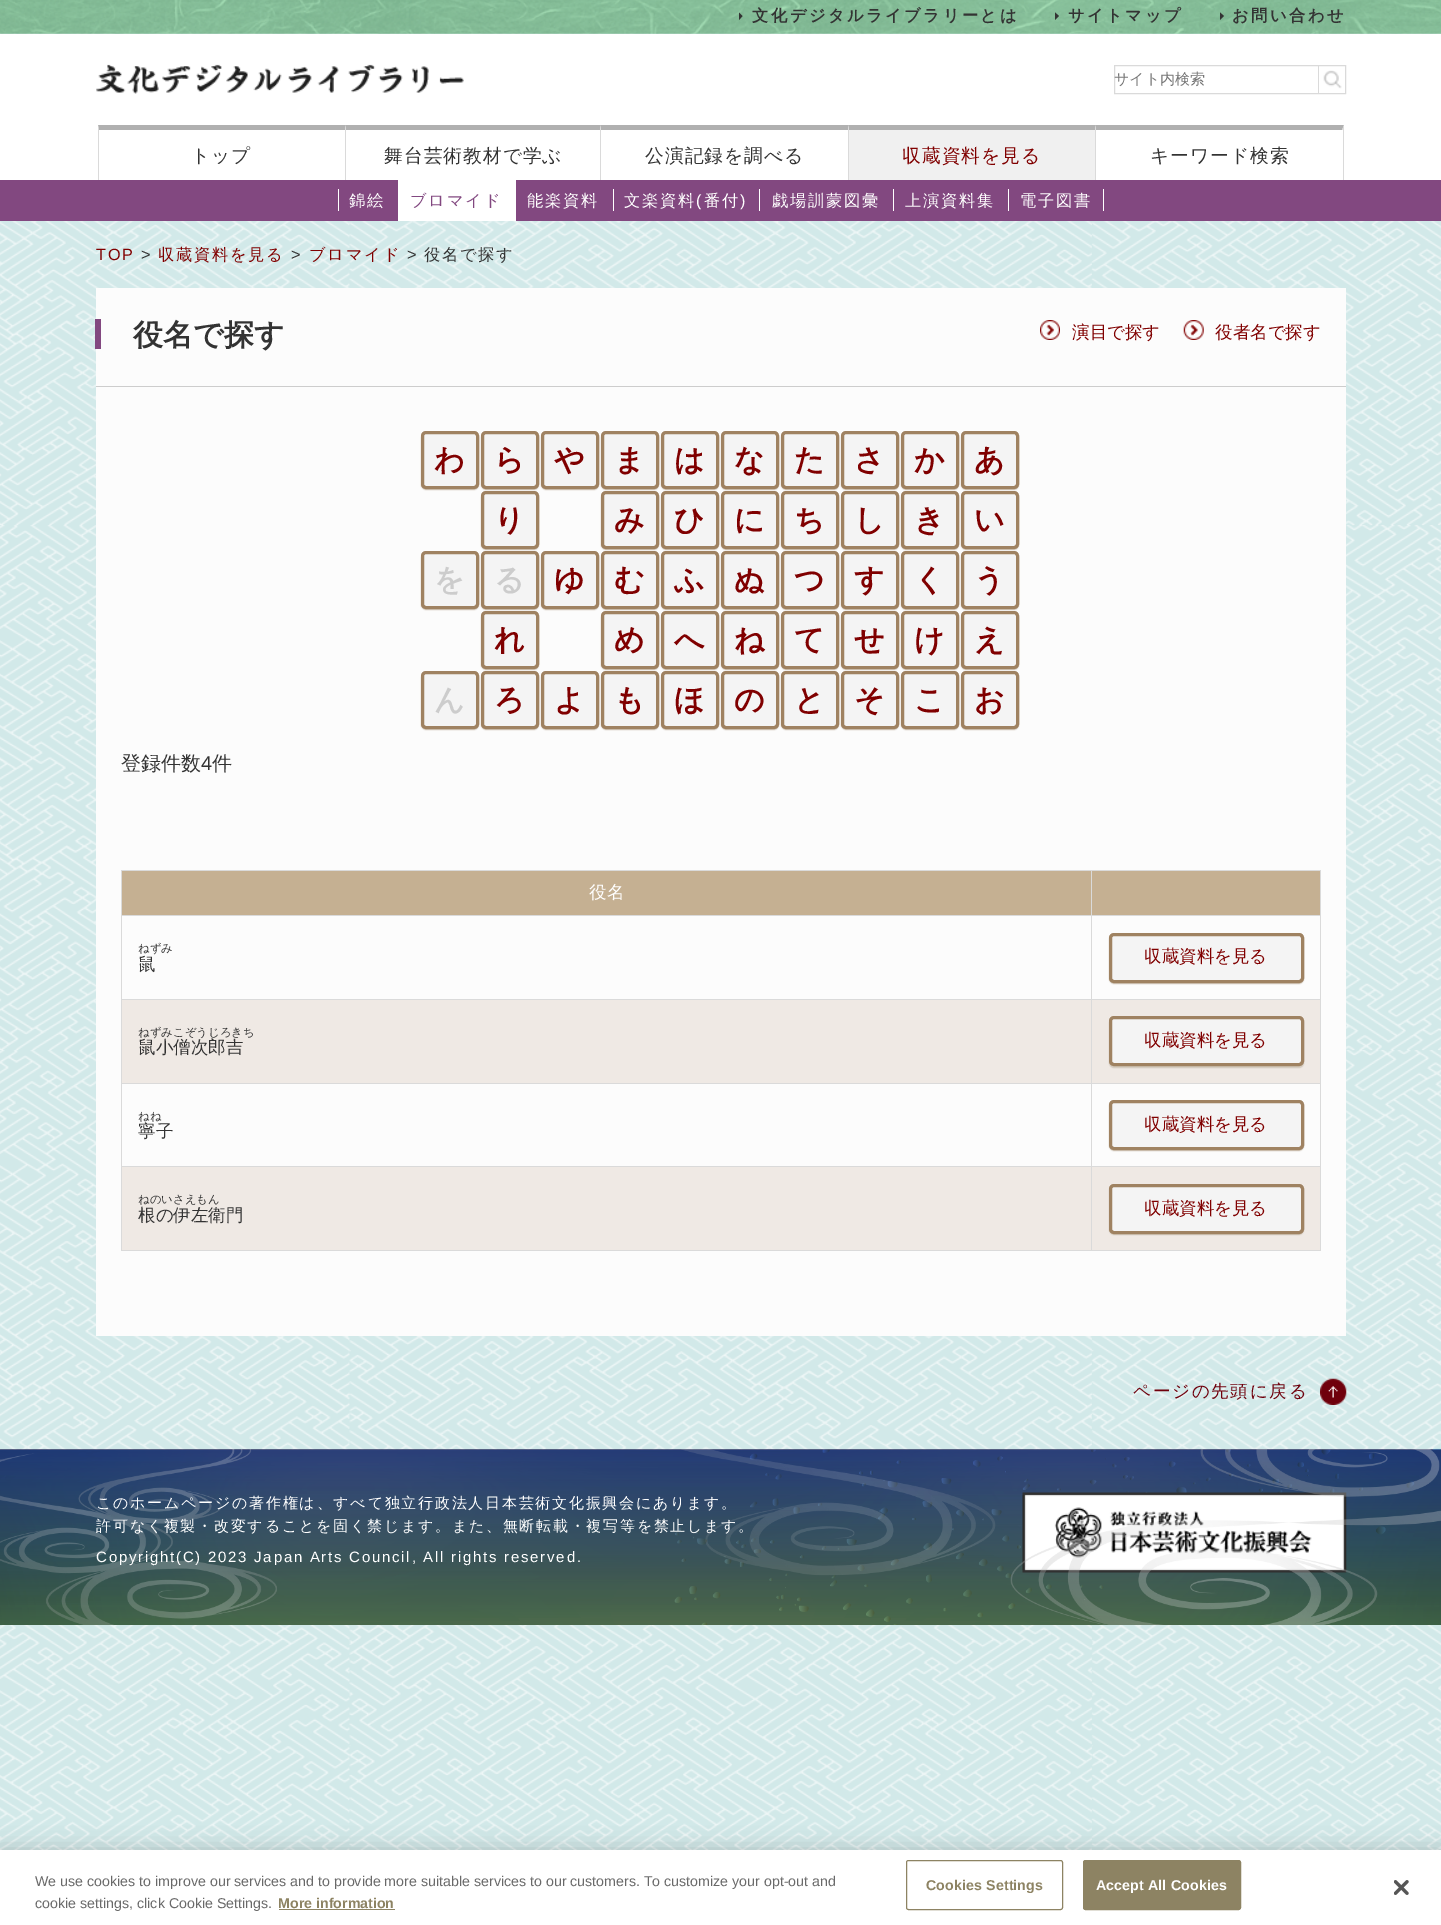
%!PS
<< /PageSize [1441 1925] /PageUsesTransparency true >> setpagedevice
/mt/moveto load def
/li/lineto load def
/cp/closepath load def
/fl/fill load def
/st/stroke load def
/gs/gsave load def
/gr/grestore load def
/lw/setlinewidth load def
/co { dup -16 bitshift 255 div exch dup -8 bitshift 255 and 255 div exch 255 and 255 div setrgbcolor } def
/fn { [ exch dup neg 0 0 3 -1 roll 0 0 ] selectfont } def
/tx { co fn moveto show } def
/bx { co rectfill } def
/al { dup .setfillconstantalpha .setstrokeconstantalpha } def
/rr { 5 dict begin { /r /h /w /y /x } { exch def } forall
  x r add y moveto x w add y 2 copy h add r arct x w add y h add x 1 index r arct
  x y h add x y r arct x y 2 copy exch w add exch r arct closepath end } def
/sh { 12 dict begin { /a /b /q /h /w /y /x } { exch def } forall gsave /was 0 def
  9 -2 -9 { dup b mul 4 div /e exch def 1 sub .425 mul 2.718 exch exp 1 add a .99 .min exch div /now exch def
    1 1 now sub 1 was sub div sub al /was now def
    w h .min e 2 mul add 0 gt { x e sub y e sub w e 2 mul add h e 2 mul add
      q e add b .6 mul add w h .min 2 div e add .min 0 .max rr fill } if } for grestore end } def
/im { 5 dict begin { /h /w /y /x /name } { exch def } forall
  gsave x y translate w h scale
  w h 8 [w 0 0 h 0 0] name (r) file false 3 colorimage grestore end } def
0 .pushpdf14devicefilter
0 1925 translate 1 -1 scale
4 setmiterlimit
0 0 1441 1925 16#FFFFFF bx
(media/1.raw) 0 33 1441 1817 im
(media/2.raw) 0 0 1441 34 im
16#333333 co
739 20 mt 739 12.5 li 742.5 16 li cp fl
1055 20 mt 1055 12.5 li 1059 16 li cp fl
1220 20 mt 1220 12.5 li 1224 16 li cp fl
0 34 1441 146 16#FFFFFF bx
(media/3.raw) 96 64 368 30 im
16#DADADA co
1114.5 65.5 231 28 rectstroke
(media/4.raw) 1323 70 19 19 im
1318 66 1 27 16#DADADA bx
16#B0B0B0 co
98 125 mt 345 125 li 345 130 li 99 130 li cp fl
16#DADADA co
98 180 mt 98 125 li 99 130 li 99 180 li cp fl
16#B0B0B0 co
345 125 mt 600 125 li 600 130 li 346 130 li cp fl
16#DADADA co
345 180 mt 345 125 li 346 130 li 346 180 li cp fl
16#B0B0B0 co
600 125 mt 848 125 li 848 130 li 601 130 li cp fl
16#DADADA co
600 180 mt 600 125 li 601 130 li 601 180 li cp fl
16#B0B0B0 co
848 125 mt 1095 125 li 1095 130 li 849 130 li cp fl
16#DADADA co
848 180 mt 848 125 li 849 130 li 849 180 li cp fl
849 130 246 50 16#F0F0F0 bx
16#B0B0B0 co
1095 125 mt 1344 125 li 1342 130 li 1096 130 li cp fl
16#DADADA co
1344 125 mt 1344 180 li 1342 180 li 1342 130 li cp fl
1095 180 mt 1095 125 li 1096 130 li 1096 180 li cp fl
1342 130 1 50 16#FFFFFF bx
0 180 1441 41 16#824880 bx
338 189 1 22 16#FFFFFF bx
398 180 118 41 16#FFFFFF bx
613 189 1 22 16#FFFFFF bx
759 189 1 22 16#FFFFFF bx
893 189 1 22 16#FFFFFF bx
1008 189 1 22 16#FFFFFF bx
1103 189 1 22 16#FFFFFF bx
96 288 1250 1048 16#FCFCFC bx
96 386 1250 1 16#CDCDCD bx
95 319 6 30 16#824880 bx
(media/5.raw) 1040 320 20 20 im
(media/6.raw) 1183 320 21 20 im
16#D2C9BC co
961 433 58 57 5 .5 1 sh
16#F4F4F4 co
962.5 432.5 55 55 3.5 rr gs fl gr
16#9F8261 co
3 lw
st
16#D2C9BC co
961 493 58 57 5 .5 1 sh
16#F4F4F4 co
962.5 492.5 55 55 3.5 rr gs fl gr
16#9F8261 co
st
16#D2C9BC co
901 433 58 57 5 .5 1 sh
16#F4F4F4 co
902.5 432.5 55 55 3.5 rr gs fl gr
16#9F8261 co
st
16#D2C9BC co
961 553 58 57 5 .5 1 sh
16#F4F4F4 co
962.5 552.5 55 55 3.5 rr gs fl gr
16#9F8261 co
st
16#D2C9BC co
901 493 58 57 5 .5 1 sh
16#F4F4F4 co
902.5 492.5 55 55 3.5 rr gs fl gr
16#9F8261 co
st
16#D2C9BC co
841 433 58 57 5 .5 1 sh
16#F4F4F4 co
842.5 432.5 55 55 3.5 rr gs fl gr
16#9F8261 co
st
16#D2C9BC co
961 613 58 57 5 .5 1 sh
16#F4F4F4 co
962.5 612.5 55 55 3.5 rr gs fl gr
16#9F8261 co
st
16#D2C9BC co
901 553 58 57 5 .5 1 sh
16#F4F4F4 co
902.5 552.5 55 55 3.5 rr gs fl gr
16#9F8261 co
st
16#D2C9BC co
841 493 58 57 5 .5 1 sh
16#F4F4F4 co
842.5 492.5 55 55 3.5 rr gs fl gr
16#9F8261 co
st
16#D2C9BC co
781 433 58 57 5 .5 1 sh
16#F4F4F4 co
782.5 432.5 55 55 3.5 rr gs fl gr
16#9F8261 co
st
16#D2C9BC co
961 673 58 57 5 .5 1 sh
16#F4F4F4 co
962.5 672.5 55 55 3.5 rr gs fl gr
16#9F8261 co
st
16#D2C9BC co
901 613 58 57 5 .5 1 sh
16#F4F4F4 co
902.5 612.5 55 55 3.5 rr gs fl gr
16#9F8261 co
st
16#D2C9BC co
841 553 58 57 5 .5 1 sh
16#F4F4F4 co
842.5 552.5 55 55 3.5 rr gs fl gr
16#9F8261 co
st
16#D2C9BC co
781 493 58 57 5 .5 1 sh
16#F4F4F4 co
782.5 492.5 55 55 3.5 rr gs fl gr
16#9F8261 co
st
16#D2C9BC co
721 433 58 57 5 .5 1 sh
16#F4F4F4 co
722.5 432.5 55 55 3.5 rr gs fl gr
16#9F8261 co
st
16#D2C9BC co
901 673 58 57 5 .5 1 sh
16#F4F4F4 co
902.5 672.5 55 55 3.5 rr gs fl gr
16#9F8261 co
st
16#D2C9BC co
841 613 58 57 5 .5 1 sh
16#F4F4F4 co
842.5 612.5 55 55 3.5 rr gs fl gr
16#9F8261 co
st
16#D2C9BC co
781 553 58 57 5 .5 1 sh
16#F4F4F4 co
782.5 552.5 55 55 3.5 rr gs fl gr
16#9F8261 co
st
16#D2C9BC co
721 493 58 57 5 .5 1 sh
16#F4F4F4 co
722.5 492.5 55 55 3.5 rr gs fl gr
16#9F8261 co
st
16#D2C9BC co
661 433 58 57 5 .5 1 sh
16#F4F4F4 co
662.5 432.5 55 55 3.5 rr gs fl gr
16#9F8261 co
st
16#D2C9BC co
841 673 58 57 5 .5 1 sh
16#F4F4F4 co
842.5 672.5 55 55 3.5 rr gs fl gr
16#9F8261 co
st
16#D2C9BC co
781 613 58 57 5 .5 1 sh
16#F4F4F4 co
782.5 612.5 55 55 3.5 rr gs fl gr
16#9F8261 co
st
16#D2C9BC co
721 553 58 57 5 .5 1 sh
16#F4F4F4 co
722.5 552.5 55 55 3.5 rr gs fl gr
16#9F8261 co
st
16#D2C9BC co
661 493 58 57 5 .5 1 sh
16#F4F4F4 co
662.5 492.5 55 55 3.5 rr gs fl gr
16#9F8261 co
st
16#D2C9BC co
601 433 58 57 5 .5 1 sh
16#F4F4F4 co
602.5 432.5 55 55 3.5 rr gs fl gr
16#9F8261 co
st
16#D2C9BC co
781 673 58 57 5 .5 1 sh
16#F4F4F4 co
782.5 672.5 55 55 3.5 rr gs fl gr
16#9F8261 co
st
16#D2C9BC co
721 613 58 57 5 .5 1 sh
16#F4F4F4 co
722.5 612.5 55 55 3.5 rr gs fl gr
16#9F8261 co
st
16#D2C9BC co
661 553 58 57 5 .5 1 sh
16#F4F4F4 co
662.5 552.5 55 55 3.5 rr gs fl gr
16#9F8261 co
st
16#D2C9BC co
601 493 58 57 5 .5 1 sh
16#F4F4F4 co
602.5 492.5 55 55 3.5 rr gs fl gr
16#9F8261 co
st
16#D2C9BC co
541 433 58 57 5 .5 1 sh
16#F4F4F4 co
542.5 432.5 55 55 3.5 rr gs fl gr
16#9F8261 co
st
16#D2C9BC co
481 433 58 57 5 .5 1 sh
16#F4F4F4 co
482.5 432.5 55 55 3.5 rr gs fl gr
16#9F8261 co
st
16#D2C9BC co
721 673 58 57 5 .5 1 sh
16#F4F4F4 co
722.5 672.5 55 55 3.5 rr gs fl gr
16#9F8261 co
st
16#D2C9BC co
661 613 58 57 5 .5 1 sh
16#F4F4F4 co
662.5 612.5 55 55 3.5 rr gs fl gr
16#9F8261 co
st
16#D2C9BC co
601 553 58 57 5 .5 1 sh
16#F4F4F4 co
602.5 552.5 55 55 3.5 rr gs fl gr
16#9F8261 co
st
16#D2C9BC co
661 673 58 57 5 .5 1 sh
16#F4F4F4 co
662.5 672.5 55 55 3.5 rr gs fl gr
16#9F8261 co
st
16#D2C9BC co
601 613 58 57 5 .5 1 sh
16#F4F4F4 co
602.5 612.5 55 55 3.5 rr gs fl gr
16#9F8261 co
st
16#D2C9BC co
541 553 58 57 5 .5 1 sh
16#F4F4F4 co
542.5 552.5 55 55 3.5 rr gs fl gr
16#9F8261 co
st
16#D2C9BC co
481 493 58 57 5 .5 1 sh
16#F4F4F4 co
482.5 492.5 55 55 3.5 rr gs fl gr
16#9F8261 co
st
16#D2C9BC co
421 433 58 57 5 .5 1 sh
16#F4F4F4 co
422.5 432.5 55 55 3.5 rr gs fl gr
16#9F8261 co
st
16#D2C9BC co
481 553 58 57 5 .5 1 sh
16#F4F4F4 co
482.5 552.5 55 55 3.5 rr gs fl gr
16#9F8261 co
st
16#D2C9BC co
601 673 58 57 5 .5 1 sh
16#F4F4F4 co
602.5 672.5 55 55 3.5 rr gs fl gr
16#9F8261 co
st
16#D2C9BC co
541 673 58 57 5 .5 1 sh
16#F4F4F4 co
542.5 672.5 55 55 3.5 rr gs fl gr
16#9F8261 co
st
16#D2C9BC co
481 613 58 57 5 .5 1 sh
16#F4F4F4 co
482.5 612.5 55 55 3.5 rr gs fl gr
16#9F8261 co
st
16#D2C9BC co
421 553 58 57 5 .5 1 sh
16#F4F4F4 co
422.5 552.5 55 55 3.5 rr gs fl gr
16#9F8261 co
st
16#D2C9BC co
481 673 58 57 5 .5 1 sh
16#F4F4F4 co
482.5 672.5 55 55 3.5 rr gs fl gr
16#9F8261 co
st
16#D2C9BC co
421 673 58 57 5 .5 1 sh
16#F4F4F4 co
422.5 672.5 55 55 3.5 rr gs fl gr
16#9F8261 co
st
122 871 969 44 16#C5B092 bx
1091 870 230 1 16#DADADA bx
1091 915 230 1 16#DADADA bx
1091 999 230 1 16#DADADA bx
1091 1083 230 1 16#DADADA bx
1091 1166 230 1 16#DADADA bx
1320 1166 1 85 16#DADADA bx
1091 1250 230 1 16#DADADA bx
1091 1166 1 85 16#DADADA bx
121 1166 972 1 16#DADADA bx
1091 1083 1 85 16#DADADA bx
121 1083 972 1 16#DADADA bx
1091 999 1 85 16#DADADA bx
121 999 972 1 16#DADADA bx
1091 915 1 85 16#DADADA bx
121 915 972 1 16#DADADA bx
1091 870 1 46 16#DADADA bx
121 870 972 1 16#DADADA bx
121 1250 972 1 16#DADADA bx
121 1166 1 85 16#DADADA bx
121 1083 1 85 16#DADADA bx
121 999 1 85 16#DADADA bx
121 915 1 85 16#DADADA bx
121 870 1 46 16#DADADA bx
1092 871 228 44 16#C5B092 bx
1320 1083 1 85 16#DADADA bx
1320 999 1 85 16#DADADA bx
1320 915 1 85 16#DADADA bx
1320 870 1 46 16#DADADA bx
16#D2C9BC co
1109 934 195 50 5 .5 1 sh
16#F4F4F4 co
1110.5 934.5 192 47 3.5 rr gs fl gr
16#9F8261 co
st
122 1000 969 83 16#EFE9E4 bx
1092 1000 228 83 16#EFE9E4 bx
16#D2C9BC co
1109 1018 195 50 5 .5 1 sh
16#F4F4F4 co
1110.5 1017.5 192 47 3.5 rr gs fl gr
16#9F8261 co
st
16#D2C9BC co
1109 1101 195 50 5 .5 1 sh
16#F4F4F4 co
1110.5 1101.5 192 47 3.5 rr gs fl gr
16#9F8261 co
st
122 1167 969 83 16#EFE9E4 bx
1092 1167 228 83 16#EFE9E4 bx
16#D2C9BC co
1109 1185 195 50 5 .5 1 sh
16#F4F4F4 co
1110.5 1185.5 192 47 3.5 rr gs fl gr
16#9F8261 co
st
(media/7.raw) 1320 1378 27 27 im
(media/8.raw) 0 1448 1441 177 im
(media/9.raw) 0 1449 277 176 im
(media/11.raw) 1022 1492 325 81 im
16#000000 co
0 1850 1441 75 0 11 .2 sh
0 1850 1441 75 16#FFFFFF bx
279 1909 116 1 16#8D8363 bx
1 lw
906.5 1860.5 156 49 2 rr st
1083.5 1860.5 157 49 2 rr gs fl gr
st
(media/12.raw) 1394 1880 15 15 im
/WenQuanYiZenHei-Bold 16.25 fn
16#333333 co
752 21 mt 2.5 0 (文化デジタルライブラリーとは) ashow
1068 21 mt 2.5 0 (サイトマップ) ashow
1232 21 mt 2.5 0 (お問い合わせ) ashow
(サイト内検索) 1114 84 /WenQuanYiZenHei-Medium 15 16#757575 tx
/WenQuanYiZenHei-Medium 18.75 fn
16#333333 co
191 162 mt 1 0 (トップ) ashow
384 162 mt 1 0 (舞台芸術教材で学ぶ) ashow
645 162 mt 1 0 (公演記録を調べる) ashow
16#800000 co
902 162 mt 1 0 (収蔵資料を見る) ashow
16#333333 co
1150 162 mt 1 0 (キーワード検索) ashow
/WenQuanYiZenHei-Medium 16.25 fn
16#FFFFFF co
349 206 mt 1.75 0 (錦絵) ashow
16#824880 co
410 206 mt 1.75 0 (ブロマイド) ashow
16#FFFFFF co
527 206 mt 1.75 0 (能楽資料) ashow
624 206 mt 1.75 0 (文楽資料) ashow
/LiberationSans-Regular 16.25 fn
696 206 mt 1.75 0 (\() ashow
/WenQuanYiZenHei-Medium 16.25 fn
704 206 mt 1.75 0 (番付) ashow
/LiberationSans-Regular 16.25 fn
740 206 mt 1.75 0 (\)) ashow
/WenQuanYiZenHei-Medium 16.25 fn
772 206 mt 1.75 0 (戯場訓蒙図彙) ashow
905 206 mt 1.75 0 (上演資料集) ashow
1020 206 mt 1.75 0 (電子図書) ashow
/LiberationSans-Regular 16.25 fn
16#800000 co
96 260 mt 1.75 0 (TOP) ashow
16#333333 co
141 260 mt 1.75 0 (>) ashow
/WenQuanYiZenHei-Medium 16.25 fn
16#800000 co
158 260 mt 1.75 0 (収蔵資料を見る) ashow
/LiberationSans-Regular 16.25 fn
16#333333 co
291 260 mt 1.75 0 (>) ashow
/WenQuanYiZenHei-Medium 16.25 fn
16#800000 co
309 260 mt 1.75 0 (ブロマイド) ashow
/LiberationSans-Regular 16.25 fn
16#333333 co
407 260 mt 1.75 0 (>) ashow
/WenQuanYiZenHei-Medium 16.25 fn
424 260 mt 1.75 0 (役名で探す) ashow
(役名で探す) 133 345 /WenQuanYiZenHei-Bold 30 16#333333 tx
(演目で探す) 1072 338 /WenQuanYiZenHei-Medium 17.5 16#800000 tx
(役者名で探す) 1215 338 /WenQuanYiZenHei-Medium 17.5 16#800000 tx
(わ) 434 470 /WenQuanYiZenHei-Bold 30 16#800000 tx
(を) 434 590 /WenQuanYiZenHei-Bold 30 16#CCCCCC tx
(ん) 434 710 /WenQuanYiZenHei-Bold 30 16#CCCCCC tx
(ら) 494 470 /WenQuanYiZenHei-Bold 30 16#800000 tx
(り) 494 530 /WenQuanYiZenHei-Bold 30 16#800000 tx
(る) 494 590 /WenQuanYiZenHei-Bold 30 16#CCCCCC tx
(れ) 494 650 /WenQuanYiZenHei-Bold 30 16#800000 tx
(ろ) 494 710 /WenQuanYiZenHei-Bold 30 16#800000 tx
(や) 554 470 /WenQuanYiZenHei-Bold 30 16#800000 tx
(ゆ) 554 590 /WenQuanYiZenHei-Bold 30 16#800000 tx
(よ) 554 710 /WenQuanYiZenHei-Bold 30 16#800000 tx
(ま) 614 470 /WenQuanYiZenHei-Bold 30 16#800000 tx
(み) 614 530 /WenQuanYiZenHei-Bold 30 16#800000 tx
(む) 614 590 /WenQuanYiZenHei-Bold 30 16#800000 tx
(め) 614 650 /WenQuanYiZenHei-Bold 30 16#800000 tx
(も) 614 710 /WenQuanYiZenHei-Bold 30 16#800000 tx
(は) 674 470 /WenQuanYiZenHei-Bold 30 16#800000 tx
(ひ) 674 530 /WenQuanYiZenHei-Bold 30 16#800000 tx
(ふ) 674 590 /WenQuanYiZenHei-Bold 30 16#800000 tx
(へ) 674 650 /WenQuanYiZenHei-Bold 30 16#800000 tx
(ほ) 674 710 /WenQuanYiZenHei-Bold 30 16#800000 tx
(な) 734 470 /WenQuanYiZenHei-Bold 30 16#800000 tx
(に) 734 530 /WenQuanYiZenHei-Bold 30 16#800000 tx
(ぬ) 734 590 /WenQuanYiZenHei-Bold 30 16#800000 tx
(ね) 734 650 /WenQuanYiZenHei-Bold 30 16#800000 tx
(の) 734 710 /WenQuanYiZenHei-Bold 30 16#800000 tx
(た) 794 470 /WenQuanYiZenHei-Bold 30 16#800000 tx
(ち) 794 530 /WenQuanYiZenHei-Bold 30 16#800000 tx
(つ) 794 590 /WenQuanYiZenHei-Bold 30 16#800000 tx
(て) 794 650 /WenQuanYiZenHei-Bold 30 16#800000 tx
(と) 794 710 /WenQuanYiZenHei-Bold 30 16#800000 tx
(さ) 854 470 /WenQuanYiZenHei-Bold 30 16#800000 tx
(し) 854 530 /WenQuanYiZenHei-Bold 30 16#800000 tx
(す) 854 590 /WenQuanYiZenHei-Bold 30 16#800000 tx
(せ) 854 650 /WenQuanYiZenHei-Bold 30 16#800000 tx
(そ) 854 710 /WenQuanYiZenHei-Bold 30 16#800000 tx
(か) 914 470 /WenQuanYiZenHei-Bold 30 16#800000 tx
(き) 914 530 /WenQuanYiZenHei-Bold 30 16#800000 tx
(く) 914 590 /WenQuanYiZenHei-Bold 30 16#800000 tx
(け) 914 650 /WenQuanYiZenHei-Bold 30 16#800000 tx
(こ) 914 710 /WenQuanYiZenHei-Bold 30 16#800000 tx
(あ) 974 470 /WenQuanYiZenHei-Bold 30 16#800000 tx
(い) 974 530 /WenQuanYiZenHei-Bold 30 16#800000 tx
(う) 974 590 /WenQuanYiZenHei-Bold 30 16#800000 tx
(え) 974 650 /WenQuanYiZenHei-Bold 30 16#800000 tx
(お) 974 710 /WenQuanYiZenHei-Bold 30 16#800000 tx
(登録件数) 121 770 /WenQuanYiZenHei-Medium 20 16#333333 tx
(4) 201 770 /LiberationSans-Regular 20 16#333333 tx
(件) 212 770 /WenQuanYiZenHei-Medium 20 16#333333 tx
(役名) 589 898 /WenQuanYiZenHei-Medium 17.5 16#FFFFFF tx
(ねずみ) 138 952 /WenQuanYiZenHei-Medium 11.4 16#333333 tx
(鼠) 138 970 /WenQuanYiZenHei-Medium 17.5 16#333333 tx
(収蔵資料を見る) 1144 962 /WenQuanYiZenHei-Medium 17.5 16#800000 tx
(ねずみこぞうじろきち) 138 1036 /WenQuanYiZenHei-Medium 11.4 16#333333 tx
(鼠小僧次郎吉) 138 1053 /WenQuanYiZenHei-Medium 17.5 16#333333 tx
(収蔵資料を見る) 1144 1046 /WenQuanYiZenHei-Medium 17.5 16#800000 tx
(ねね) 138 1120 /WenQuanYiZenHei-Medium 11.4 16#333333 tx
(寧子) 138 1137 /WenQuanYiZenHei-Medium 17.5 16#333333 tx
(収蔵資料を見る) 1144 1130 /WenQuanYiZenHei-Medium 17.5 16#800000 tx
(ねのいさえもん) 138 1203 /WenQuanYiZenHei-Medium 11.4 16#333333 tx
(根の伊左衛門) 138 1221 /WenQuanYiZenHei-Medium 17.5 16#333333 tx
(収蔵資料を見る) 1144 1214 /WenQuanYiZenHei-Medium 17.5 16#800000 tx
16#6F000C co
1133 1397 mt 1.75 0 (ページの先頭に戻る) ashow
/WenQuanYiZenHei-Medium 15 fn
16#FFFFFF co
96 1508 mt 1.75 0 (このホームページの著作権は、すべて独立行政法人日本芸術文化振興会にあります。) ashow
96 1531 mt 1.75 0 (許可なく複製・改変することを固く禁じます。また、無断転載・複写等を禁止します。) ashow
(media/10.raw) 681 1449 760 176 im
/LiberationSans-Regular 15 fn
96 1562 mt 1.75 0 (Copyright\(C\) 2023 Japan Arts Council, All rights reserved.) ashow
(We use cookies to improve our services and to provide more suitable services to our customers. To customize your opt-out and) 35 1886 /LiberationSans-Regular 14.23 16#696969 tx
(cookie settings, click Cookie Settings.) 35 1908 /LiberationSans-Regular 14.23 16#696969 tx
(More information) 278 1908 /LiberationSans-Bold 14.23 16#8D8363 tx
926 1890 mt .1 0 (Cookies Settings) ashow
16#FFFFFF co
1096 1890 mt .1 0 (Accept All Cookies) ashow
.poppdf14devicefilter showpage
